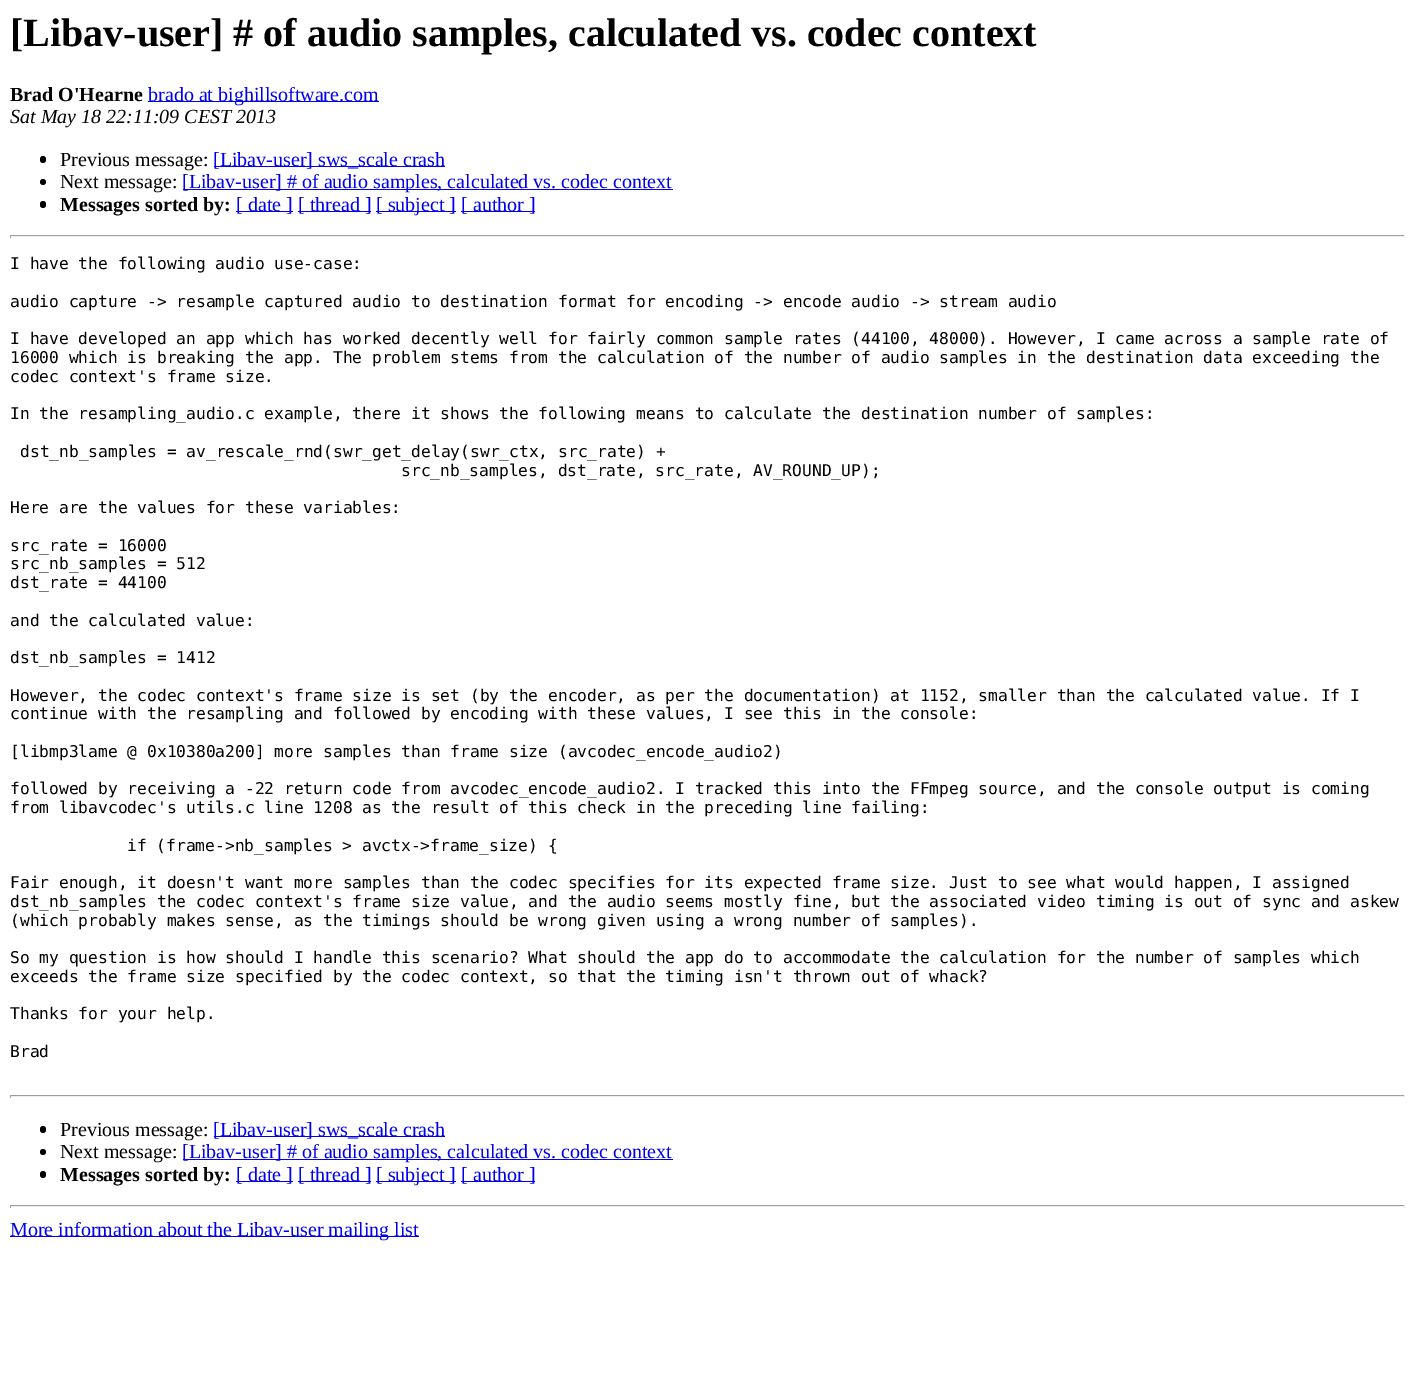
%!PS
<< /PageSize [1414 1375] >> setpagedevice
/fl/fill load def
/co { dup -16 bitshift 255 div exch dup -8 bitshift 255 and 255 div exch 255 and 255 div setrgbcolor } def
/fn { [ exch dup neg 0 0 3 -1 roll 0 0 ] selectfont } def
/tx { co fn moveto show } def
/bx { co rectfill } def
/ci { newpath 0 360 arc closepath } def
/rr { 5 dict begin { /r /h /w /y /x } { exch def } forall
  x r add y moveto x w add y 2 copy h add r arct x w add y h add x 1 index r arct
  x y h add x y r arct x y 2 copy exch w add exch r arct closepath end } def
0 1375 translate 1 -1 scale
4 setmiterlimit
0 0 1414 1375 16#FFFFFF bx
148 101 231 1 16#0000EE bx
16#000000 co
40 156 6 7 3 rr fl
214 166 231 1 16#0000EE bx
16#000000 co
43 182 3 ci fl
183 189 490 1 16#0000EE bx
16#000000 co
40 201 6 7 3 rr fl
236 211 57 1 16#0000EE bx
298 211 73 1 16#0000EE bx
376 211 80 1 16#0000EE bx
461 211 74 1 16#0000EE bx
10 235 1395 1 16#9F9F9F bx
1404 235 1 3 16#EEEEEE bx
10 236 1395 1 16#EEEEEE bx
10 235 1 3 16#9F9F9F bx
10 1095 1395 1 16#9F9F9F bx
1404 1095 1 3 16#EEEEEE bx
10 1096 1395 1 16#EEEEEE bx
10 1095 1 3 16#9F9F9F bx
16#000000 co
40 1126 6 7 3 rr fl
214 1136 231 1 16#0000EE bx
16#000000 co
43 1152 3 ci fl
183 1159 490 1 16#0000EE bx
16#000000 co
40 1171 6 7 3 rr fl
236 1181 57 1 16#0000EE bx
298 1181 73 1 16#0000EE bx
376 1181 80 1 16#0000EE bx
461 1181 74 1 16#0000EE bx
10 1205 1395 1 16#9F9F9F bx
1404 1205 1 3 16#EEEEEE bx
10 1206 1395 1 16#EEEEEE bx
10 1205 1 3 16#9F9F9F bx
10 1236 409 1 16#0000EE bx
([Libav-user] # of audio samples, calculated vs. codec context) 10 46 /LiberationSerif-Bold 40 16#000000 tx
(Brad O'Hearne) 10 101 /LiberationSerif-Bold 20 16#000000 tx
(brado at bighillsoftware.com) 148 101 /LiberationSerif-Regular 20 16#0000EE tx
(Sat May 18 22:11:09 CEST 2013) 10 123 /LiberationSerif-Italic 20 16#000000 tx
(Previous message:) 60 166 /LiberationSerif-Regular 20 16#000000 tx
([Libav-user] sws_scale crash) 213 166 /LiberationSerif-Regular 20 16#0000EE tx
(Next message:) 60 188 /LiberationSerif-Regular 20 16#000000 tx
([Libav-user] # of audio samples, calculated vs. codec context) 182 188 /LiberationSerif-Regular 20 16#0000EE tx
(Messages sorted by:) 60 211 /LiberationSerif-Bold 20 16#000000 tx
([ date ]) 236 211 /LiberationSerif-Regular 20 16#0000EE tx
([ thread ]) 298 211 /LiberationSerif-Regular 20 16#0000EE tx
([ subject ]) 376 211 /LiberationSerif-Regular 20 16#0000EE tx
([ author ]) 461 211 /LiberationSerif-Regular 20 16#0000EE tx
(I have the following audio use-case:) 10 269 /DejaVuSansMono-Regular 16.25 16#000000 tx
(audio capture -> resample captured audio to destination format for encoding -> encode audio -> stream audio) 10 307 /DejaVuSansMono-Regular 16.25 16#000000 tx
(I have developed an app which has worked decently well for fairly common sample rates \(44100, 48000\). However, I came across a sample rate of) 10 344 /DejaVuSansMono-Regular 16.25 16#000000 tx
(16000 which is breaking the app. The problem stems from the calculation of the number of audio samples in the destination data exceeding the) 10 363 /DejaVuSansMono-Regular 16.25 16#000000 tx
(codec context's frame size.) 10 382 /DejaVuSansMono-Regular 16.25 16#000000 tx
(In the resampling_audio.c example, there it shows the following means to calculate the destination number of samples:) 10 419 /DejaVuSansMono-Regular 16.25 16#000000 tx
(dst_nb_samples = av_rescale_rnd\(swr_get_delay\(swr_ctx, src_rate\) +) 20 457 /DejaVuSansMono-Regular 16.25 16#000000 tx
(src_nb_samples, dst_rate, src_rate, AV_ROUND_UP\);) 401 476 /DejaVuSansMono-Regular 16.25 16#000000 tx
(Here are the values for these variables:) 10 513 /DejaVuSansMono-Regular 16.25 16#000000 tx
(src_rate = 16000) 10 551 /DejaVuSansMono-Regular 16.25 16#000000 tx
(src_nb_samples = 512) 10 569 /DejaVuSansMono-Regular 16.25 16#000000 tx
(dst_rate = 44100) 10 588 /DejaVuSansMono-Regular 16.25 16#000000 tx
(and the calculated value:) 10 626 /DejaVuSansMono-Regular 16.25 16#000000 tx
(dst_nb_samples = 1412) 10 663 /DejaVuSansMono-Regular 16.25 16#000000 tx
(However, the codec context's frame size is set \(by the encoder, as per the documentation\) at 1152, smaller than the calculated value. If I) 10 701 /DejaVuSansMono-Regular 16.25 16#000000 tx
(continue with the resampling and followed by encoding with these values, I see this in the console:) 10 719 /DejaVuSansMono-Regular 16.25 16#000000 tx
([libmp3lame @ 0x10380a200] more samples than frame size \(avcodec_encode_audio2\)) 10 757 /DejaVuSansMono-Regular 16.25 16#000000 tx
(followed by receiving a -22 return code from avcodec_encode_audio2. I tracked this into the FFmpeg source, and the console output is coming) 10 794 /DejaVuSansMono-Regular 16.25 16#000000 tx
(from libavcodec's utils.c line 1208 as the result of this check in the preceding line failing:) 10 813 /DejaVuSansMono-Regular 16.25 16#000000 tx
(if \(frame->nb_samples > avctx->frame_size\) {) 127 851 /DejaVuSansMono-Regular 16.25 16#000000 tx
(Fair enough, it doesn't want more samples than the codec specifies for its expected frame size. Just to see what would happen, I assigned) 10 888 /DejaVuSansMono-Regular 16.25 16#000000 tx
(dst_nb_samples the codec context's frame size value, and the audio seems mostly fine, but the associated video timing is out of sync and askew) 10 907 /DejaVuSansMono-Regular 16.25 16#000000 tx
(\(which probably makes sense, as the timings should be wrong given using a wrong number of samples\).) 10 926 /DejaVuSansMono-Regular 16.25 16#000000 tx
(So my question is how should I handle this scenario? What should the app do to accommodate the calculation for the number of samples which) 10 963 /DejaVuSansMono-Regular 16.25 16#000000 tx
(exceeds the frame size specified by the codec context, so that the timing isn't thrown out of whack?) 10 982 /DejaVuSansMono-Regular 16.25 16#000000 tx
(Thanks for your help.) 10 1019 /DejaVuSansMono-Regular 16.25 16#000000 tx
(Brad) 10 1057 /DejaVuSansMono-Regular 16.25 16#000000 tx
(Previous message:) 60 1136 /LiberationSerif-Regular 20 16#000000 tx
([Libav-user] sws_scale crash) 213 1136 /LiberationSerif-Regular 20 16#0000EE tx
(Next message:) 60 1158 /LiberationSerif-Regular 20 16#000000 tx
([Libav-user] # of audio samples, calculated vs. codec context) 182 1158 /LiberationSerif-Regular 20 16#0000EE tx
(Messages sorted by:) 60 1181 /LiberationSerif-Bold 20 16#000000 tx
([ date ]) 236 1181 /LiberationSerif-Regular 20 16#0000EE tx
([ thread ]) 298 1181 /LiberationSerif-Regular 20 16#0000EE tx
([ subject ]) 376 1181 /LiberationSerif-Regular 20 16#0000EE tx
([ author ]) 461 1181 /LiberationSerif-Regular 20 16#0000EE tx
(More information about the Libav-user mailing list) 10 1236 /LiberationSerif-Regular 20 16#0000EE tx
showpage
